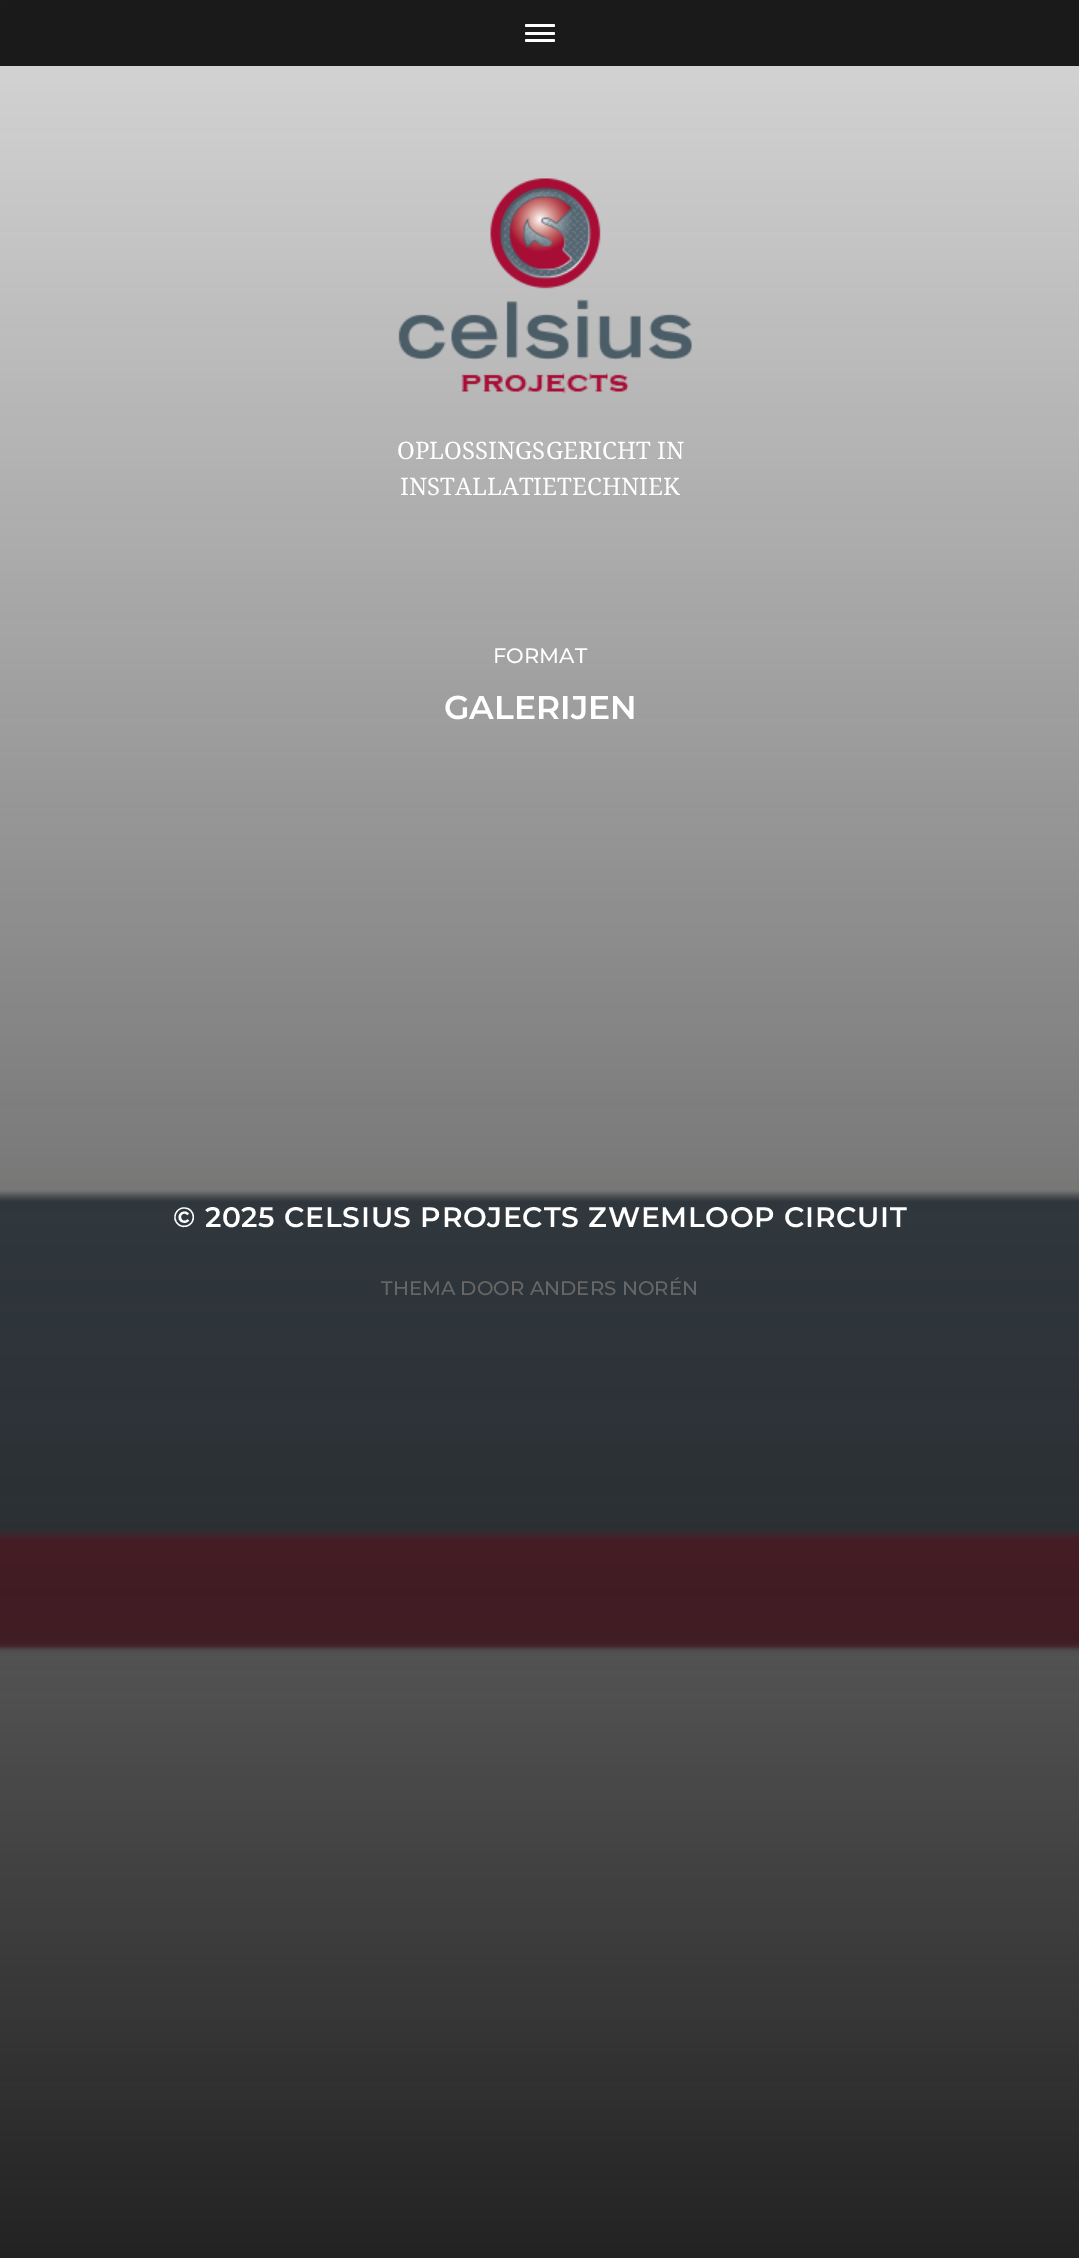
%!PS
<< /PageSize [1079 2258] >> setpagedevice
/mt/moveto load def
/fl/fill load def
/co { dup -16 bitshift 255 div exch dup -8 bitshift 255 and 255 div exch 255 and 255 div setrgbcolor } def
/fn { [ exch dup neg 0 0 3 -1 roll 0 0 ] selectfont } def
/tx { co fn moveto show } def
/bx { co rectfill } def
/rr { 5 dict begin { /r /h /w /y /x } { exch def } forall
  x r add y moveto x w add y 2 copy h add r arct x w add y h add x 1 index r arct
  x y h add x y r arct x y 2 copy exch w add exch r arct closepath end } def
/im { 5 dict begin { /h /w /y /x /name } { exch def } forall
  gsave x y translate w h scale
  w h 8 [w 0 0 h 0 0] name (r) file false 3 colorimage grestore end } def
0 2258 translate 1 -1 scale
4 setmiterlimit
0 0 1079 2258 16#1D1D1D bx
16#1A1A1A co
0 0 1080 66 5 rr fl
16#FFFFFF co
525 24 30 3 1.5 rr fl
525 32 30 3 1.5 rr fl
525 39 30 3 1.5 rr fl
(media/1.raw) 0 66 1079 2192 im
(media/2.raw) 398 178 294 216 im
(OPLOSSINGSGERICHT IN) 397 459 /DroidSerif-Regular 24 16#FFFFFF tx
(INSTALLATIETECHNIEK) 400 495 /DroidSerif-Regular 24 16#FFFFFF tx
(FORMAT) 493 663 /Montserrat-Thin 21 16#FFFFFF tx
(GALERIJEN) 444 719 /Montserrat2-Thin 33 16#FFFFFF tx
/Montserrat2-Thin 28.2 fn
173 1227 mt .7 0 (© 2025) ashow
284 1227 mt .7 0 (CELSIUS PROJECTS ZWEMLOOP CIRCUIT) ashow
(THEMA DOOR ANDERS NORÉN) 381 1295 /Montserrat-Thin 19.75 16#666666 tx
showpage
